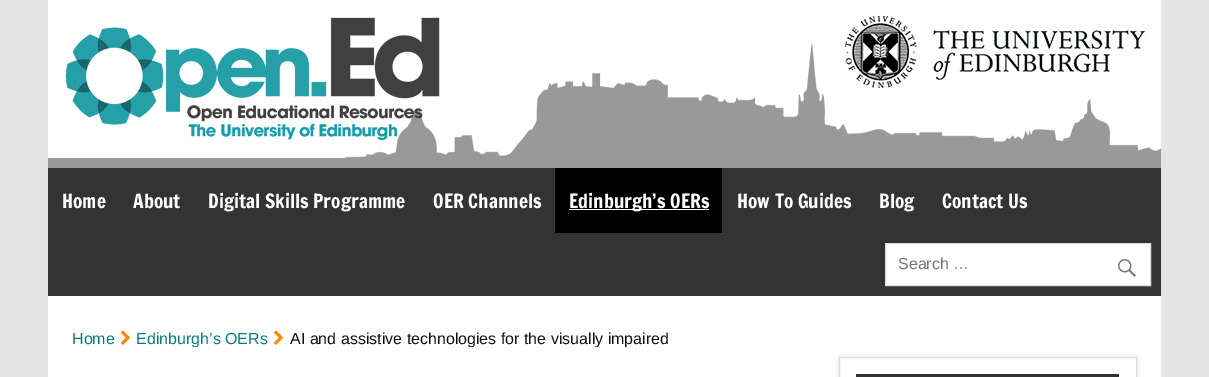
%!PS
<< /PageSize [1209 377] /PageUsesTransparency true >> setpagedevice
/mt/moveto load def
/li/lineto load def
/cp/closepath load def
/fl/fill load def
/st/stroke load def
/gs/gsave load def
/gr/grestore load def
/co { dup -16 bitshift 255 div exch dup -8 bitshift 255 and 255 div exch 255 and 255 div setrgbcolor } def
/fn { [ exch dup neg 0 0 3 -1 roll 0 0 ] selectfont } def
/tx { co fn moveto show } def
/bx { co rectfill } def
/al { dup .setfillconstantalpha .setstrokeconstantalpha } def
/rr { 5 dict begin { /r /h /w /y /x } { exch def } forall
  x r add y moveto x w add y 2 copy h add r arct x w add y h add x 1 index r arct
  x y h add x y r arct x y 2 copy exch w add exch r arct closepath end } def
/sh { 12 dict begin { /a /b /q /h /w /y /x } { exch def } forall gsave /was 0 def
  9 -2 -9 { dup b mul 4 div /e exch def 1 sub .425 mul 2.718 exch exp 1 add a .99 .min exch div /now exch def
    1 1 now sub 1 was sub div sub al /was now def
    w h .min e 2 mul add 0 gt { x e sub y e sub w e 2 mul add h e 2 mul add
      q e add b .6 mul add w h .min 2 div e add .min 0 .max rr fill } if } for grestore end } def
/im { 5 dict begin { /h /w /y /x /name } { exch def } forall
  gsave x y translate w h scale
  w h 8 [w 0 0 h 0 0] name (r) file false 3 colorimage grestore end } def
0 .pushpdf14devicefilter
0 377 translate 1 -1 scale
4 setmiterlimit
0 0 1209 377 16#E5E5E5 bx
48 0 1113 377 16#FFFFFF bx
(media/1.raw) 345 43 816 115 im
48 158 1113 10 16#999999 bx
(media/2.raw) 65 17 375 124 im
(media/3.raw) 845 16 300 72 im
48 168 1113 128 16#333333 bx
555 168 167 65 16#000000 bx
569 209 140 1 16#FFFFFF bx
885.5 243.5 mt 1150.5 243.5 li 1150.5 285.5 li 885.5 285.5 li cp gs fl gr
16#DDDDDD co
st
(media/4.raw) 1118 259 18 18 im
(media/5.raw) 120 330 10 15 im
(media/5.raw) 273 330 10 15 im
gs
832 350 mt 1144 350 li 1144 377 li 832 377 li cp 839 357 mt 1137 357 li 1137 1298 li 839 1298 li cp eoclip newpath
839 357 298 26 0 2 1 sh
gr
839.5 357.5 297 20 rectstroke
856 374 263 3 16#333333 bx
(Home) 62 208 /FrancoisOne-Regular 19.25 16#FFFFFF tx
(About) 133 208 /FrancoisOne-Regular 19.25 16#FFFFFF tx
(Digital Skills Programme) 208 208 /FrancoisOne-Regular 19.25 16#FFFFFF tx
(OER Channels) 433 208 /FrancoisOne-Regular 19.25 16#FFFFFF tx
(Edinburgh’s OERs) 569 208 /FrancoisOne-Regular 19.25 16#FFFFFF tx
(How To Guides) 737 208 /FrancoisOne-Regular 19.25 16#FFFFFF tx
(Blog) 879 208 /FrancoisOne-Regular 19.25 16#FFFFFF tx
(Contact Us) 942 208 /FrancoisOne-Regular 19.25 16#FFFFFF tx
(Search …) 898 269 /LiberationSans-Regular 16 16#757575 tx
(Home) 72 344 /LiberationSans-Regular 16 16#067E7D tx
gs
72 330 1065 17 rectclip
(Edinburgh’s OERs) 136 344 /LiberationSans-Regular 16 16#067E7D tx
(AI and assistive technologies for the visually impaired) 290 344 /LiberationSans-Regular 16 16#111111 tx
gr
.poppdf14devicefilter showpage
